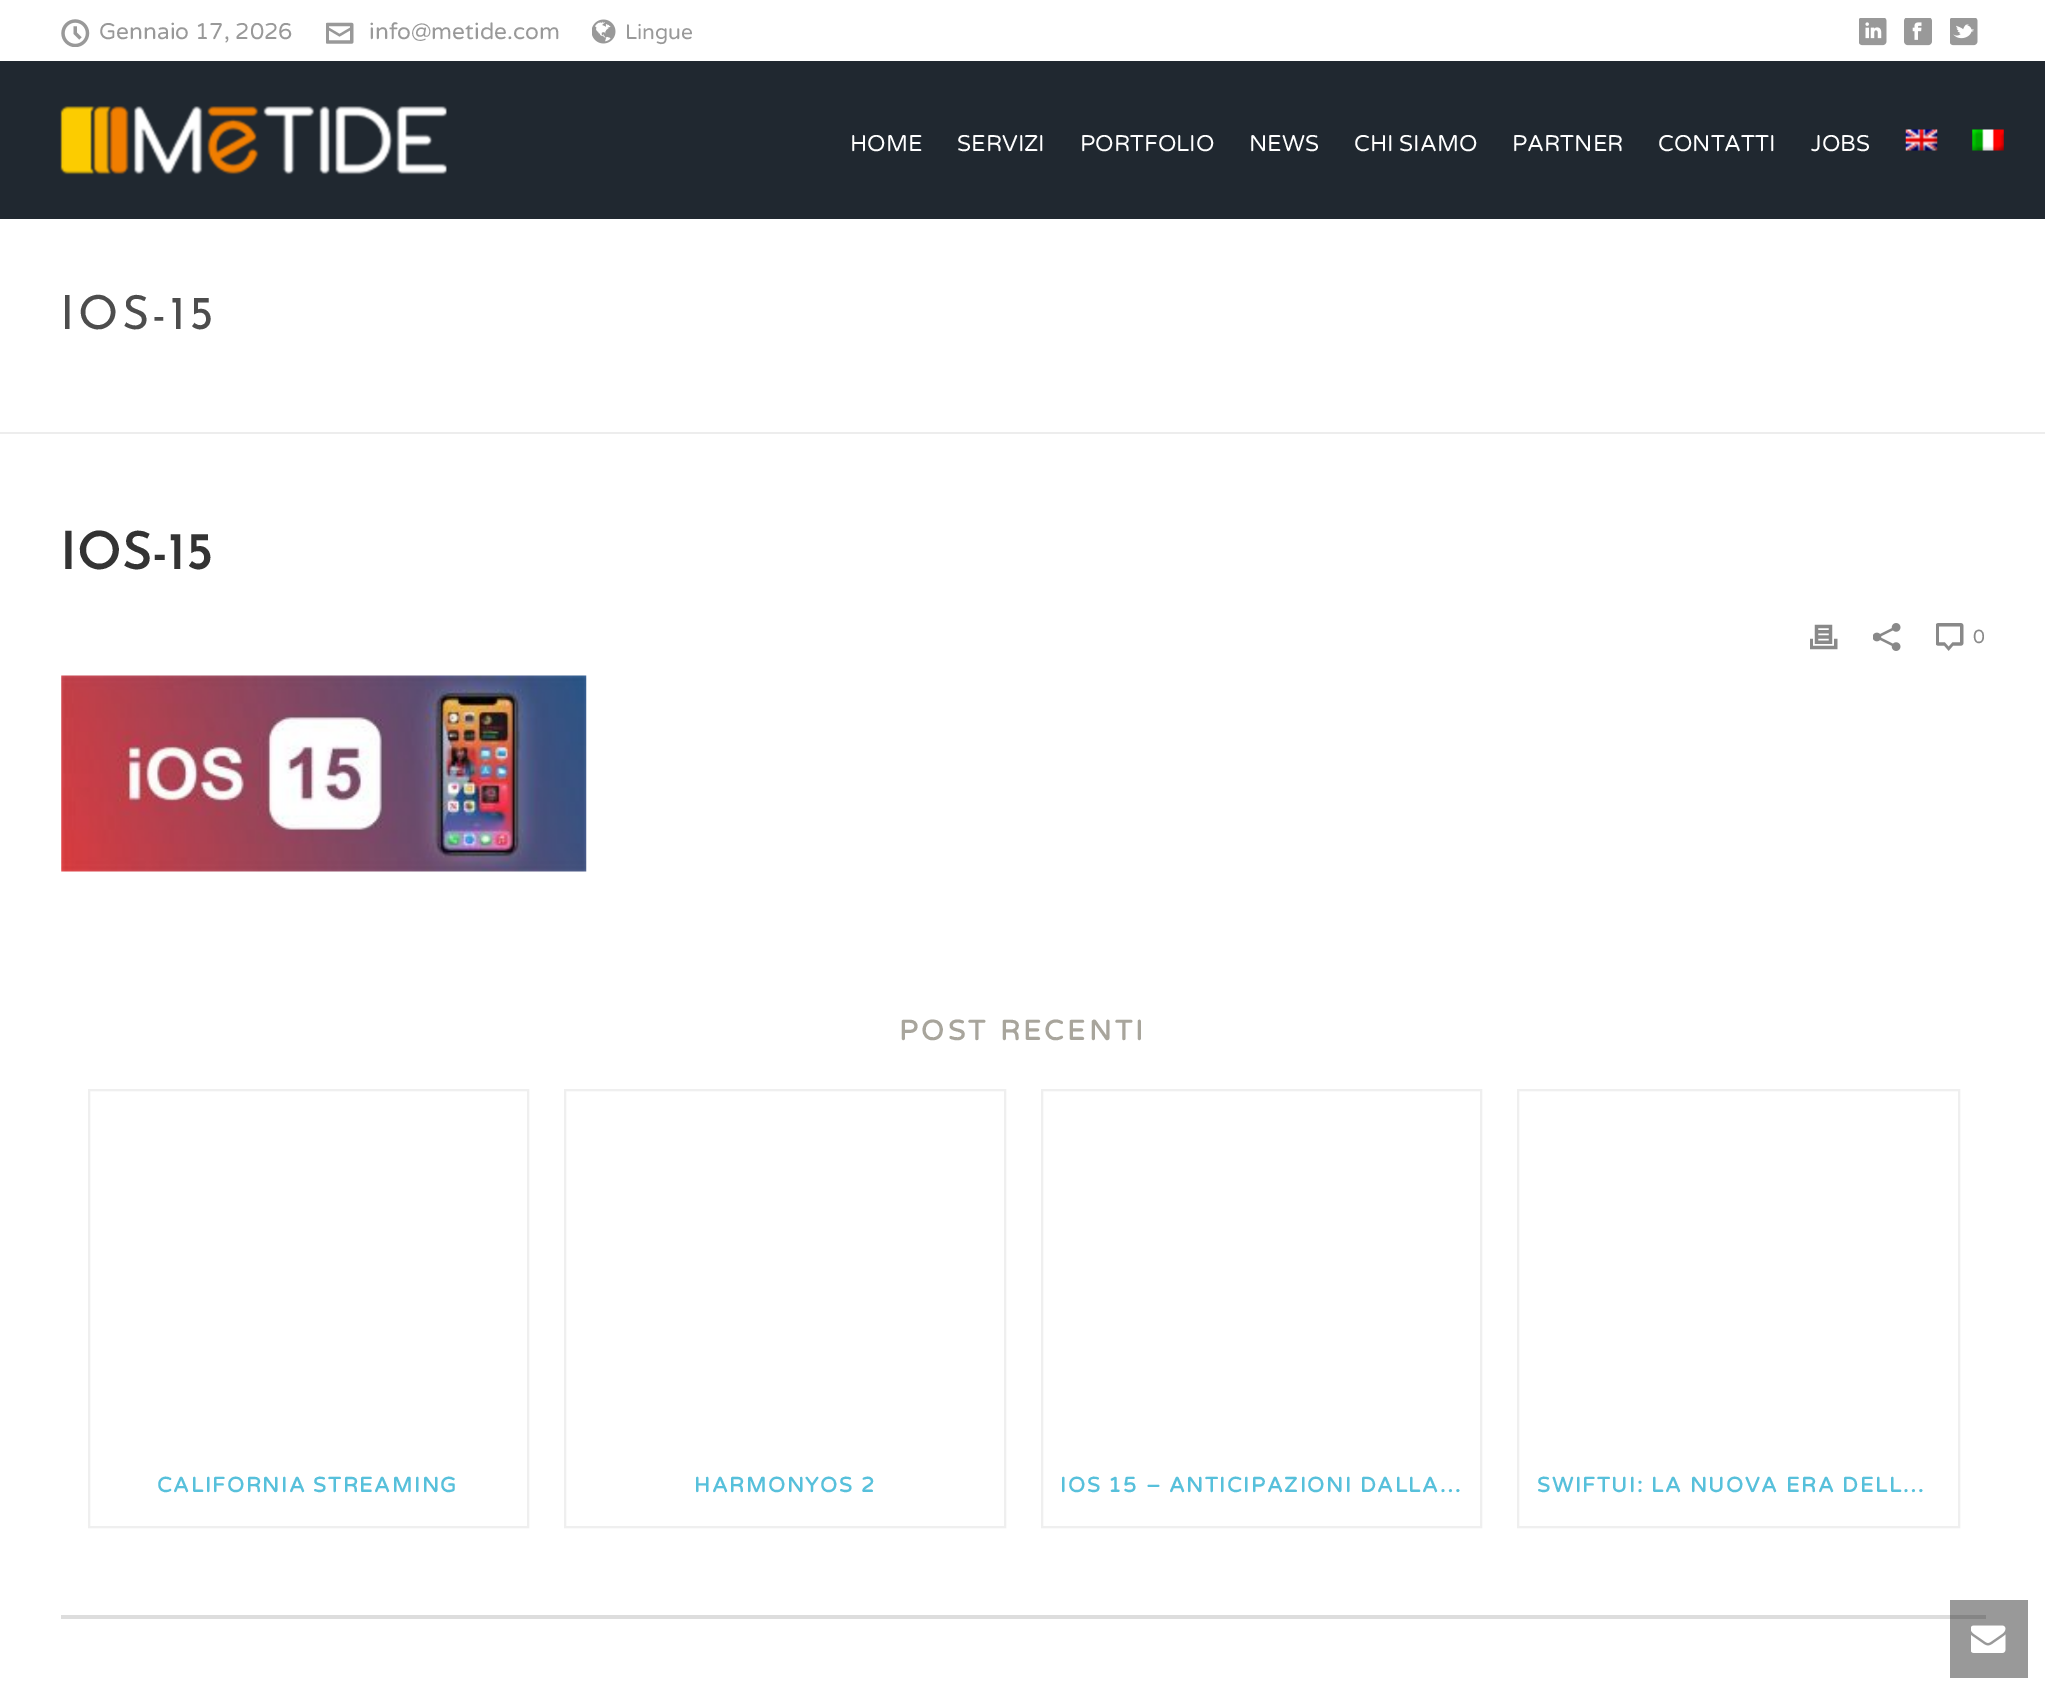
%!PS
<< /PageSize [2045 1703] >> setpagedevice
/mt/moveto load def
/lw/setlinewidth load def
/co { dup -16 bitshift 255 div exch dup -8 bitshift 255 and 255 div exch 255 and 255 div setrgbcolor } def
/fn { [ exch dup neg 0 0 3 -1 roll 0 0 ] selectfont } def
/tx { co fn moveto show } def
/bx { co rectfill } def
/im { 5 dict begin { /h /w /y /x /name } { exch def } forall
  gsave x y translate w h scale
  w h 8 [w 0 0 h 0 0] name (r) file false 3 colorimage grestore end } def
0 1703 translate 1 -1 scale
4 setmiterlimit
0 0 2045 1703 16#FFFFFF bx
1950 1600 78 78 16#999999 bx
0 432 2045 2 16#EDEDED bx
(media/1.raw) 61 19 29 28 im
(media/2.raw) 326 22 28 22 im
(media/3.raw) 592 19 24 25 im
(media/4.raw) 1859 18 28 28 im
(media/5.raw) 1904 18 28 28 im
(media/6.raw) 1950 18 28 28 im
0 61 2045 158 16#202830 bx
(media/7.raw) 60 106 387 69 im
(media/8.raw) 1905 129 33 22 im
(media/9.raw) 1972 129 32 22 im
(media/10.raw) 1810 624 28 26 im
(media/11.raw) 1873 623 28 28 im
(media/12.raw) 1936 623 28 28 im
(media/13.raw) 61 675 526 197 im
61 1615 1889 4 16#DDDDDD bx
1950 1615 36 4 16#858585 bx
16#EFEFEF co
2 lw
89 1090 439 437 rectstroke
565 1090 440 437 rectstroke
1042 1090 439 437 rectstroke
1518 1090 441 437 rectstroke
(media/14.raw) 1971 1625 35 28 im
(Gennaio 17, 2026) 99 39 /VarelaRound-Regular 22.75 16#999999 tx
(info@metide.com) 369 39 /VarelaRound-Regular 22.75 16#999999 tx
(Lingue) 625 39 /VarelaRound-Regular 21 16#999999 tx
(HOME) 850 151 /VarelaRound-Regular 22.75 16#FFFFFF tx
(SERVIZI) 957 151 /VarelaRound-Regular 22.75 16#FFFFFF tx
(PORTFOLIO) 1080 151 /VarelaRound-Regular 22.75 16#FFFFFF tx
(NEWS) 1249 151 /VarelaRound-Regular 22.75 16#FFFFFF tx
(CHI SIAMO) 1354 151 /VarelaRound-Regular 22.75 16#FFFFFF tx
(PARTNER) 1512 151 /VarelaRound-Regular 22.75 16#FFFFFF tx
(CONTATTI) 1658 151 /VarelaRound-Regular 22.75 16#FFFFFF tx
(JOBS) 1811 151 /VarelaRound-Regular 22.75 16#FFFFFF tx
/JosefinSans-Regular 47 fn
16#4D4D4D co
60 329 mt 3.5 0 (IOS-15) ashow
(IOS-15) 60 569 /JosefinSans-SemiBold 52.5 16#333333 tx
(0) 1973 643 /VarelaRound-Regular 19 16#898989 tx
/VarelaRound-Bold 28 fn
16#A8A59C co
899 1040 mt 3.5 0 (POST RECENTI) ashow
/VarelaRound-Bold 21 fn
16#57C0DB co
157 1492 mt 1.75 0 (CALIFORNIA STREAMING) ashow
694 1492 mt 1.75 0 (HARMONYOS 2) ashow
1060 1492 mt 1.75 0 (IOS 15 – ANTICIPAZIONI DALLA…) ashow
1537 1492 mt 1.75 0 (SWIFTUI: LA NUOVA ERA DELL…) ashow
showpage
